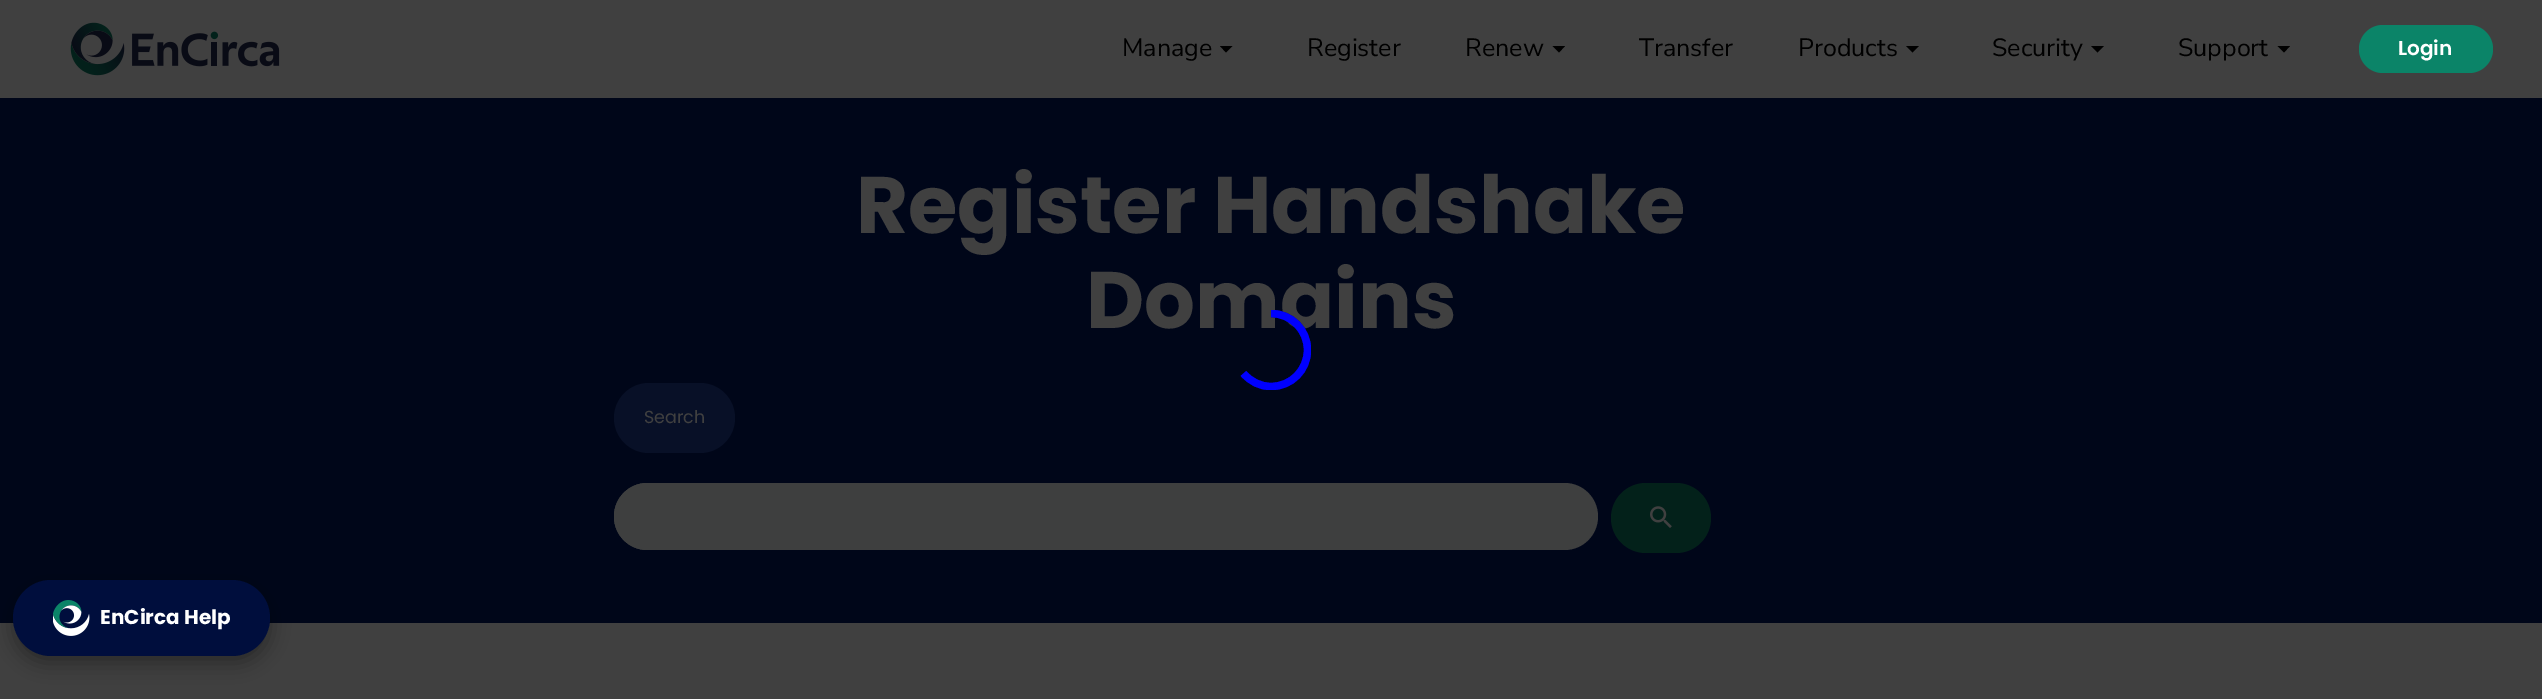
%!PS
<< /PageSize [2542 699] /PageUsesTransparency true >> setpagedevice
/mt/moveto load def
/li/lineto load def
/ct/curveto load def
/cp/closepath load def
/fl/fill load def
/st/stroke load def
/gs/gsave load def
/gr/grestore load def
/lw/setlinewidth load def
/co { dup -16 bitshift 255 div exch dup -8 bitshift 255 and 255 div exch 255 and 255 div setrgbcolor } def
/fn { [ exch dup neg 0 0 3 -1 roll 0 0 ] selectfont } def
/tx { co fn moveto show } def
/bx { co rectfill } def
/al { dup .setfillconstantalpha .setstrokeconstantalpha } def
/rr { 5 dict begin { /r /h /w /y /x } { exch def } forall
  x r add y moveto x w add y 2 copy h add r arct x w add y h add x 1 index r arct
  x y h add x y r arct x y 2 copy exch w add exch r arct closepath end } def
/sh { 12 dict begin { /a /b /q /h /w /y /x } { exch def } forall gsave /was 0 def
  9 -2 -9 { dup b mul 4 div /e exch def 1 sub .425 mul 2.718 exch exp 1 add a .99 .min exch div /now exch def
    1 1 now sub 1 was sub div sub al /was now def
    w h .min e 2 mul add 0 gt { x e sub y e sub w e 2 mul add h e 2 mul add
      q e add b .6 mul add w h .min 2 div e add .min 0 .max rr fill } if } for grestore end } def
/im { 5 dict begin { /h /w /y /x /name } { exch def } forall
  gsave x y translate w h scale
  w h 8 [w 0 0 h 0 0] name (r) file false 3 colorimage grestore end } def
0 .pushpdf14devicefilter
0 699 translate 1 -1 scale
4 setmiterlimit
0 0 2542 699 16#404040 bx
(media/1.raw) 70 22 210 54 im
16#000000 co
1220 46 mt 1226 52.5 li 1232.5 46 li cp fl
1552.5 46 mt 1559 52.5 li 1565 46 li cp fl
1906 46 mt 1912.5 52.5 li 1919 46 li cp fl
2091 46 mt 2097.5 52.5 li 2104 46 li cp fl
2277.5 46 mt 2284 52.5 li 2290 46 li cp fl
16#0B8468 co
2359 25 134 48 24 rr fl
0 98 2542 525 16#000619 bx
16#081027 co
614 383 121 70 35 rr fl
16#3E3F3F co
614 483 984 67 33.5 rr fl
614 483 966 67 33.5 rr fl
16#03211A co
1611 483 100 70 35 rr fl
(media/2.raw) 1650 506 22 22 im
16#000000 co
13 586 257 77 38.5 9.5 .35 sh
16#000E3D co
13 580 257 76 38 rr fl
(media/3.raw) 53 600 37 36 im
(Manage) 1122 56 /NunitoSans-Regular 25 16#000000 tx
(Register) 1307 56 /NunitoSans-Regular 25 16#000000 tx
(Renew) 1465 56 /NunitoSans-Regular 25 16#000000 tx
(Transfer) 1639 56 /NunitoSans-Regular 25 16#000000 tx
(Products) 1798 56 /NunitoSans-Regular 25 16#000000 tx
(Security) 1992 56 /NunitoSans-Regular 25 16#000000 tx
(Support) 2178 56 /NunitoSans-Regular 25 16#000000 tx
(Login) 2398 55 /Poppins-SemiBold 20 16#FFFFFF tx
(Register Handshake) 856 233 /Poppins-Bold 80 16#404040 tx
(Domains) 1086 328 /Poppins-Bold 80 16#404040 tx
(Search) 644 423 /Poppins-Regular 17.5 16#404040 tx
gs
1231 310 80 80 rectclip
16#000080 co
7.3 lw
1271 313.5 mt 1291.5 313.5 1307.5 330 1307.5 350 ct 1307.5 370 1291.5 386.5 1271 386.5 ct 1260 386.5 1250.5 381.5 1243.5 373.5 ct st
16#0000FF co
1271 313.5 mt 1291.5 313.5 1307.5 330 1307.5 350 ct 1307.5 370 1291.5 386.5 1271 386.5 ct 1260 386.5 1250.5 381.5 1243.5 373.5 ct st
gr
(EnCirca Help) 100 624 /Poppins-Bold 20 16#FFFFFF tx
.poppdf14devicefilter showpage
